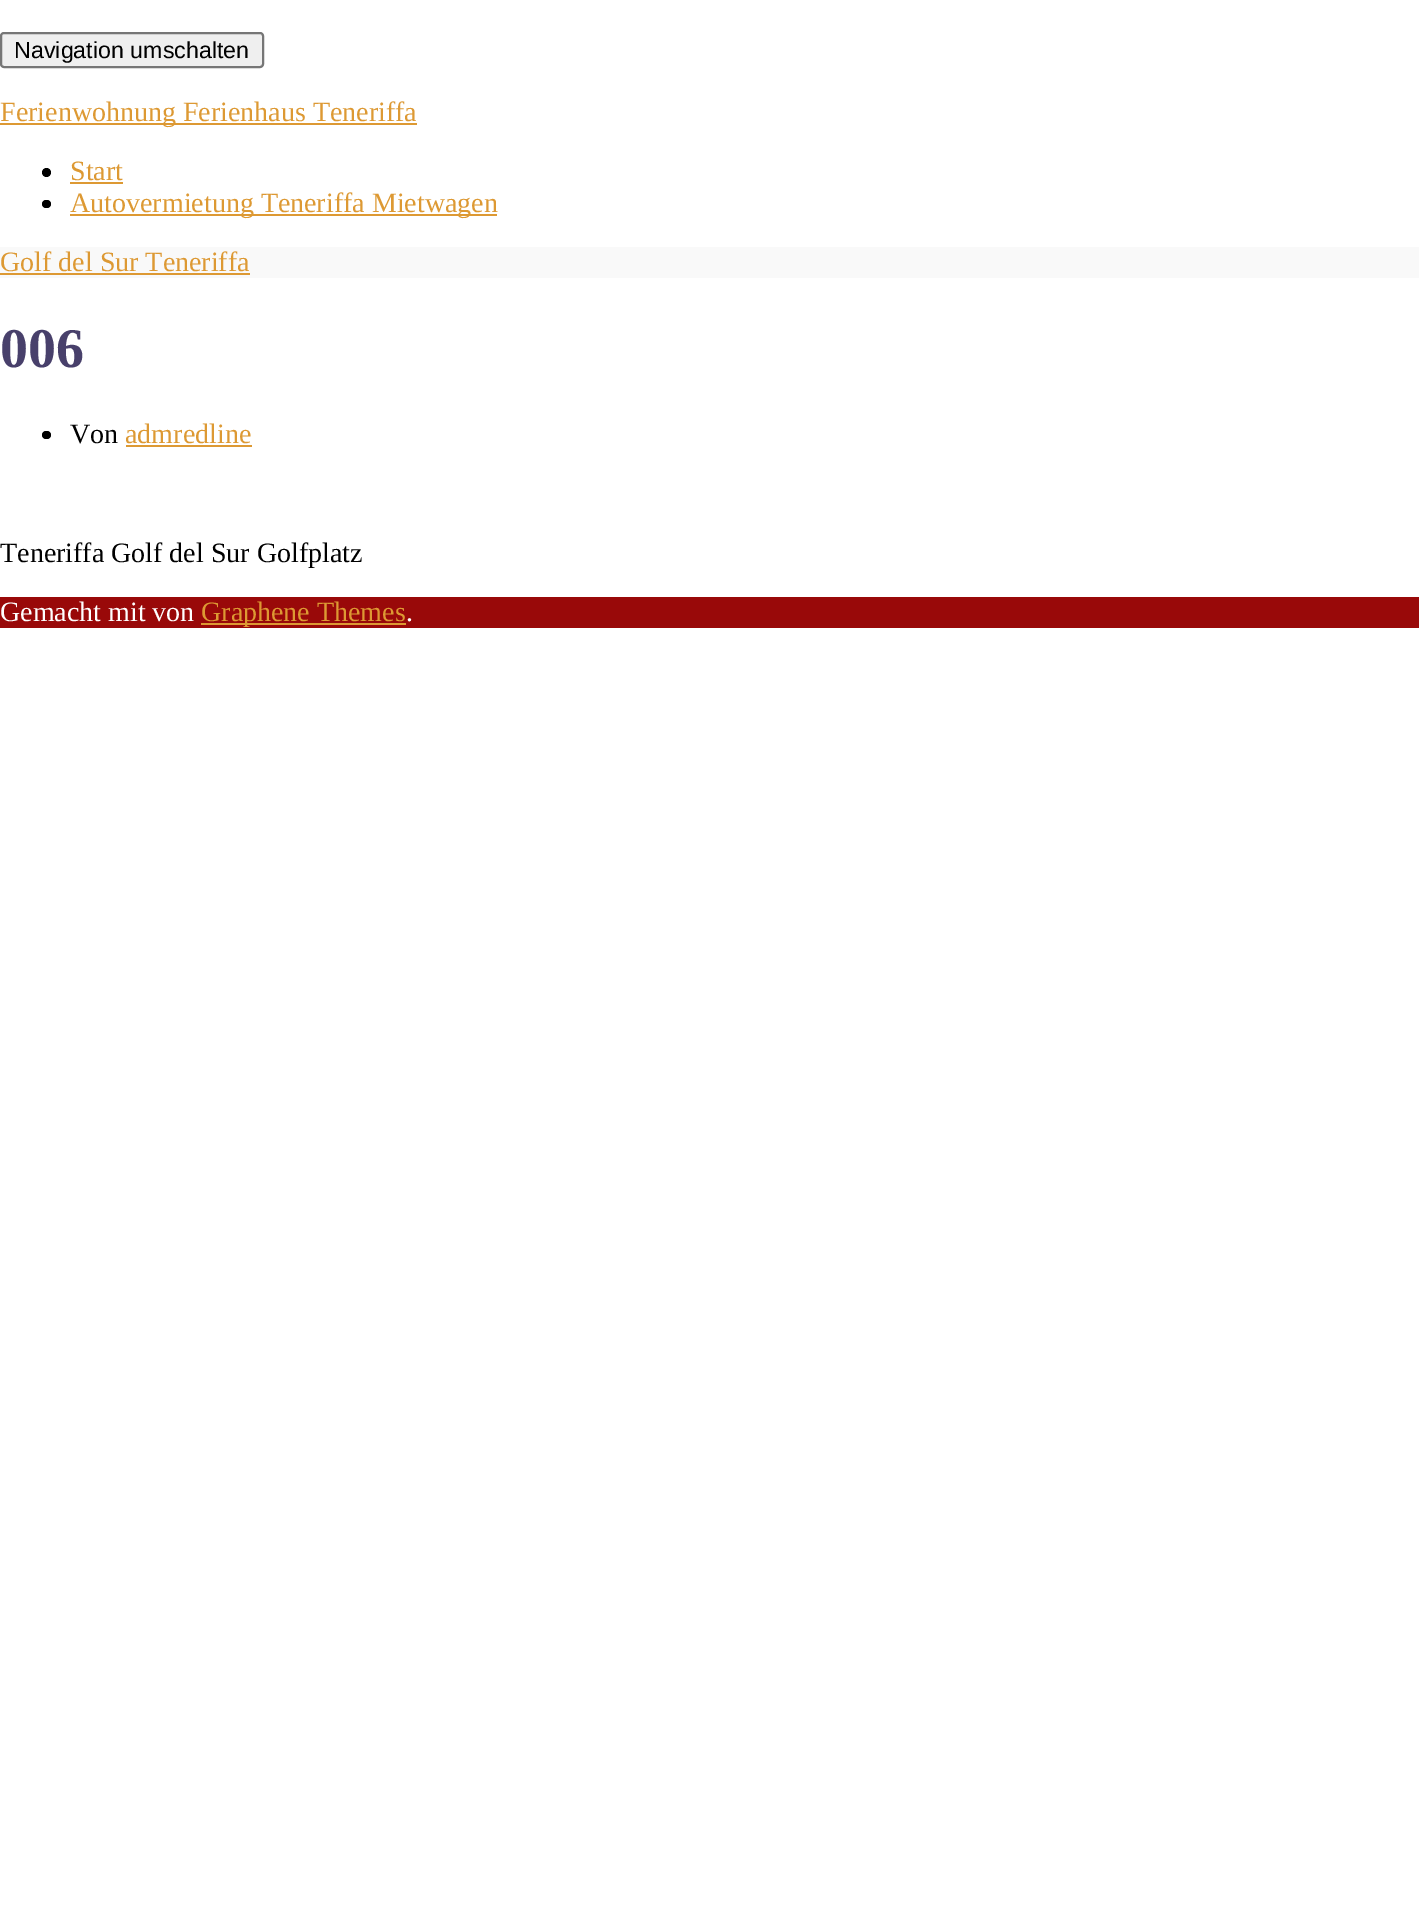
%!PS
<< /PageSize [1419 1908] >> setpagedevice
/fl/fill load def
/st/stroke load def
/gs/gsave load def
/gr/grestore load def
/lw/setlinewidth load def
/co { dup -16 bitshift 255 div exch dup -8 bitshift 255 and 255 div exch 255 and 255 div setrgbcolor } def
/fn { [ exch dup neg 0 0 3 -1 roll 0 0 ] selectfont } def
/tx { co fn moveto show } def
/bx { co rectfill } def
/ci { newpath 0 360 arc closepath } def
/rr { 5 dict begin { /r /h /w /y /x } { exch def } forall
  x r add y moveto x w add y 2 copy h add r arct x w add y h add x 1 index r arct
  x y h add x y r arct x y 2 copy exch w add exch r arct closepath end } def
0 1908 translate 1 -1 scale
4 setmiterlimit
0 0 1419 1908 16#FFFFFF bx
16#EFEFEF co
1 33 262 34 3 rr gs fl gr
16#767676 co
2 lw
st
0 123 417 2 16#DD9933 bx
16#000000 co
46.5 172.5 4.5 ci fl
70 182 53 2 16#DD9933 bx
16#000000 co
42 200 9 8 4 rr fl
70 214 427 2 16#DD9933 bx
0 247 1419 31 16#F9F9F9 bx
0 273 250 2 16#DD9933 bx
16#000000 co
42 431 9 8 4 rr fl
126 445 126 2 16#DD9933 bx
0 597 1419 31 16#990909 bx
201 623 205 2 16#DD9933 bx
(Navigation umschalten) 14 58 /LiberationSans-Regular 23.25 16#000000 tx
(Ferienwohnung Ferienhaus Teneriffa) 0 121 /LiberationSerif-Regular 28 16#DD9933 tx
(Start) 70 180 /LiberationSerif-Regular 28 16#DD9933 tx
(Autovermietung Teneriffa Mietwagen) 70 212 /LiberationSerif-Regular 28 16#DD9933 tx
(Golf del Sur Teneriffa) 0 271 /LiberationSerif-Regular 28 16#DD9933 tx
(006) 0 367 /LiberationSerif-Bold 56 16#48406B tx
(Von) 70 443 /LiberationSerif-Regular 28 16#000000 tx
(admredline) 125 443 /LiberationSerif-Regular 28 16#DD9933 tx
(Teneriffa Golf del Sur Golfplatz) 0 562 /LiberationSerif-Regular 28 16#000000 tx
(Gemacht mit von) 0 621 /LiberationSerif-Regular 28 16#FFFFFF tx
(Graphene Themes) 201 621 /LiberationSerif-Regular 28 16#DD9933 tx
(.) 406 621 /LiberationSerif-Regular 28 16#FFFFFF tx
showpage
